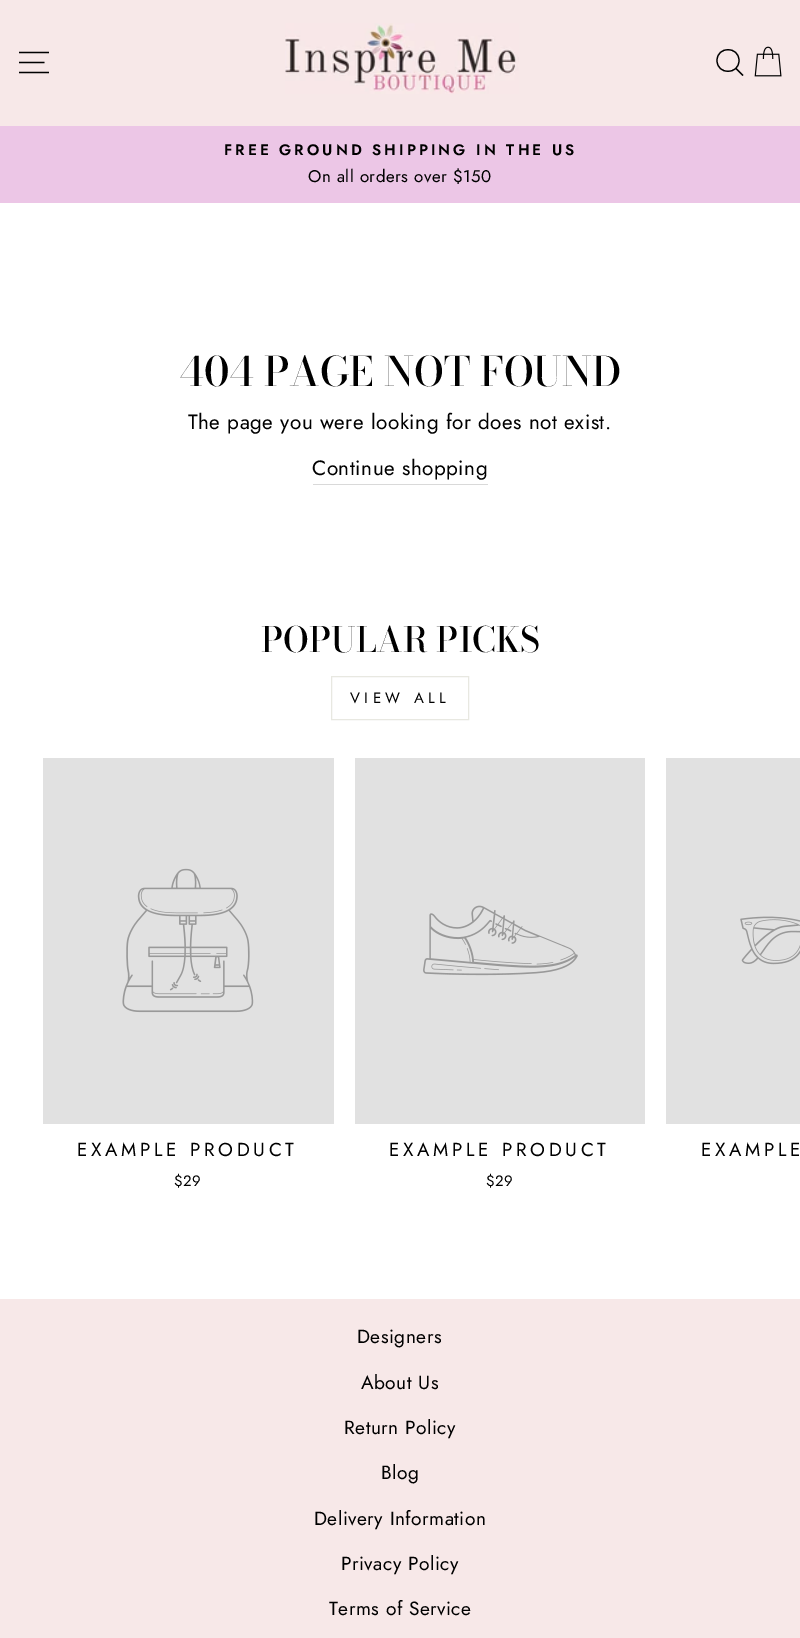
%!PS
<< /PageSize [800 1638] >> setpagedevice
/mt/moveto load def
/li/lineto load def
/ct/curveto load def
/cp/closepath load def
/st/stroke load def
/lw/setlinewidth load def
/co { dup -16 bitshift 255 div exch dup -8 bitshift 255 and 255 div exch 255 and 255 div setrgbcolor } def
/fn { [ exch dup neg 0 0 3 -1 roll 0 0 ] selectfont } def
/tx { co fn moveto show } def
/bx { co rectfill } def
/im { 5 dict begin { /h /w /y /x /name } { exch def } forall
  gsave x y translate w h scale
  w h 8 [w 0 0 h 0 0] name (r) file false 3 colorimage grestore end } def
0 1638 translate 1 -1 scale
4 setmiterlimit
0 0 800 1638 16#FFFFFF bx
0 0 800 126 16#F7E8E8 bx
16#000000 co
1.2 lw
19 52.5 mt 49 52.5 li 19 62.5 mt 44.5 62.5 li 19 72.5 mt 49 72.5 li st
(media/1.raw) 285 23 234 71 im
739 60.5 mt 739 75 717 75 717 60.5 ct 717 46 739 46 739 60.5 ct cp 743 75.5 mt 736 68.5 li st
(media/2.raw) 754 46 28 31 im
0 126 800 77 16#ECC6E6 bx
313 484 175 1 16#D9D9D9 bx
16#E8E8E1 co
1 lw
331.5 676.5 137 43 rectstroke
43 758 291 366 16#E1E1E1 bx
(media/3.raw) 122 868 132 145 im
355 758 290 366 16#E1E1E1 bx
(media/4.raw) 423 905 155 71 im
666 758 134 366 16#E1E1E1 bx
(media/5.raw) 740 916 60 49 im
0 1299 800 339 16#F7E8E8 bx
/Jost-SemiBold 15.2 fn
16#000000 co
224 155 mt 3.05 0 (FREE GROUND SHIPPING IN THE US) ashow
/Jost-Regular 16.9 fn
308 182 mt .5 0 (On all orders over $150) ashow
(404 PAGE NOT FOUND) 179 386 /BodoniModa-Medium 40.4 16#000000 tx
/Jost-Regular 20.7 fn
188 429 mt .5 0 (The page you were looking for does not exist.) ashow
312 475 mt .5 0 (Continue shopping) ashow
(POPULAR PICKS) 261 652 /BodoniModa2-Medium 34.75 16#000000 tx
/Jost-Regular 15 fn
350 703 mt 4.5 0 (VIEW ALL) ashow
/Jost-Regular 18.75 fn
77 1156 mt 3.75 0 (EXAMPLE PRODUCT) ashow
/Jost-Regular 15 fn
174 1186 mt .5 0 ($29) ashow
/Jost-Regular 18.75 fn
389 1156 mt 3.75 0 (EXAMPLE PRODUCT) ashow
/Jost-Regular 15 fn
486 1186 mt .5 0 ($29) ashow
/Jost-Regular 18.75 fn
701 1156 mt 3.75 0 (EXAMPLE) ashow
/Jost-Regular 19.1 fn
357 1343 mt .5 0 (Designers) ashow
361 1389 mt .5 0 (About Us) ashow
344 1434 mt .5 0 (Return Policy) ashow
381 1479 mt .5 0 (Blog) ashow
314 1525 mt .5 0 (Delivery Information) ashow
341 1570 mt .5 0 (Privacy Policy) ashow
329 1615 mt .5 0 (Terms of Service) ashow
showpage
